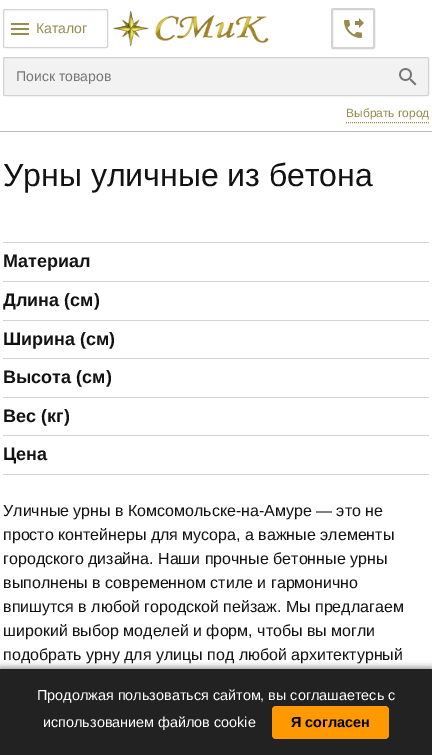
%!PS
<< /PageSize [432 755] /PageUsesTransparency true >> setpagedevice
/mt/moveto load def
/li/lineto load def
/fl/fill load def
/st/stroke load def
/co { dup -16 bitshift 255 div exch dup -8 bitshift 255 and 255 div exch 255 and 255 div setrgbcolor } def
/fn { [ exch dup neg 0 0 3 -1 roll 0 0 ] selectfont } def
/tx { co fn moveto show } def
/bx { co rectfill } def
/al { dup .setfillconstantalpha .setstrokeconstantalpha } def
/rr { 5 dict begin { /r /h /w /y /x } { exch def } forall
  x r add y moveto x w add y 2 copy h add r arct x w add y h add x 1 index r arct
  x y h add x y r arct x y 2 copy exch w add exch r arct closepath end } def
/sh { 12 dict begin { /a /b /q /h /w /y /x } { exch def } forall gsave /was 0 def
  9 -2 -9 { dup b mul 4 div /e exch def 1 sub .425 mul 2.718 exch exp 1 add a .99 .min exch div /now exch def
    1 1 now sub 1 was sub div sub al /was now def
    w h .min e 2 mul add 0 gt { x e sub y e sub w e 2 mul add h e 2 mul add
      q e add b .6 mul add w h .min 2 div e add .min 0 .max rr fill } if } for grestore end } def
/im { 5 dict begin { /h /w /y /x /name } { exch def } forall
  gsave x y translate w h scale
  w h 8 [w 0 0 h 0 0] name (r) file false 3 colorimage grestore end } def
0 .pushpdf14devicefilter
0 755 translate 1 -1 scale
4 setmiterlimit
0 0 432 755 16#FFFFFF bx
0 131 432 1 16#BDBDBD bx
(media/1.raw) 11 23 18 12 im
16#D3D3D4 co
3.5 9.5 104 38 1.5 rr st
(media/2.raw) 112 11 157 35 im
331.5 8.5 43 40 1.5 rr st
(media/3.raw) 344 18 20 20 im
332.5 9.5 41 38 1.5 rr st
16#F2F2F2 co
3 57 426 39 2 rr fl
(media/4.raw) 399 68 18 18 im
16#D3D3D4 co
3.5 57.5 425 38 1.5 rr st
16#978B4E co
[1 1] 0 setdash
346 122.5 mt 429 122.5 li st
3 242 426 1 16#D3D3D4 bx
3 281 426 1 16#D3D3D4 bx
3 320 426 1 16#D3D3D4 bx
3 358 426 1 16#D3D3D4 bx
3 397 426 1 16#D3D3D4 bx
3 435 426 1 16#D3D3D4 bx
3 474 426 1 16#D3D3D4 bx
16#000000 co
0 667 432 86 0 3 .4 sh
0 669 432 86 16#222222 bx
16#FF9900 co
272 706 117 33 4 rr fl
(Каталог) 36 33 /LiberationSans-Regular 14 16#978B4E tx
(Поиск товаров) 16 81 /LiberationSans-Regular 14 16#757575 tx
(Выбрать город) 346 117 /LiberationSans-Regular 12 16#978B4E tx
(Урны уличные из бетона) 3 186 /LiberationSans-Regular 32 16#121212 tx
(Материал) 3 267 /LiberationSans-Bold 18 16#121212 tx
(Длина \(см\)) 3 306 /LiberationSans-Bold 18 16#121212 tx
(Ширина \(см\)) 3 345 /LiberationSans-Bold 18 16#121212 tx
(Высота \(см\)) 3 383 /LiberationSans-Bold 18 16#121212 tx
(Вес \(кг\)) 3 422 /LiberationSans-Bold 18 16#121212 tx
(Цена) 3 460 /LiberationSans-Bold 18 16#121212 tx
(Уличные урны в Комсомольске-на-Амуре — это не) 3 516 /LiberationSans-Regular 16 16#121212 tx
(просто контейнеры для мусора, а важные элементы) 3 540 /LiberationSans-Regular 16 16#121212 tx
(городского дизайна. Наши прочные бетонные урны) 3 564 /LiberationSans-Regular 16 16#121212 tx
(выполнены в современном стиле и гармонично) 3 588 /LiberationSans-Regular 16 16#121212 tx
(впишутся в любой городской пейзаж. Мы предлагаем) 3 612 /LiberationSans-Regular 16 16#121212 tx
(широкий выбор моделей и форм, чтобы вы могли) 3 636 /LiberationSans-Regular 16 16#121212 tx
(подобрать урну для улицы под любой архитектурный) 3 660 /LiberationSans-Regular 16 16#121212 tx
(Продолжая пользоваться сайтом, вы соглашаетесь с) 37 700 /LiberationSans-Regular 14.4 16#FFFFFF tx
(использованием файлов cookie) 43 727 /LiberationSans-Regular 14.4 16#FFFFFF tx
(Я согласен) 291 727 /LiberationSans-Bold 14.4 16#000000 tx
.poppdf14devicefilter showpage
